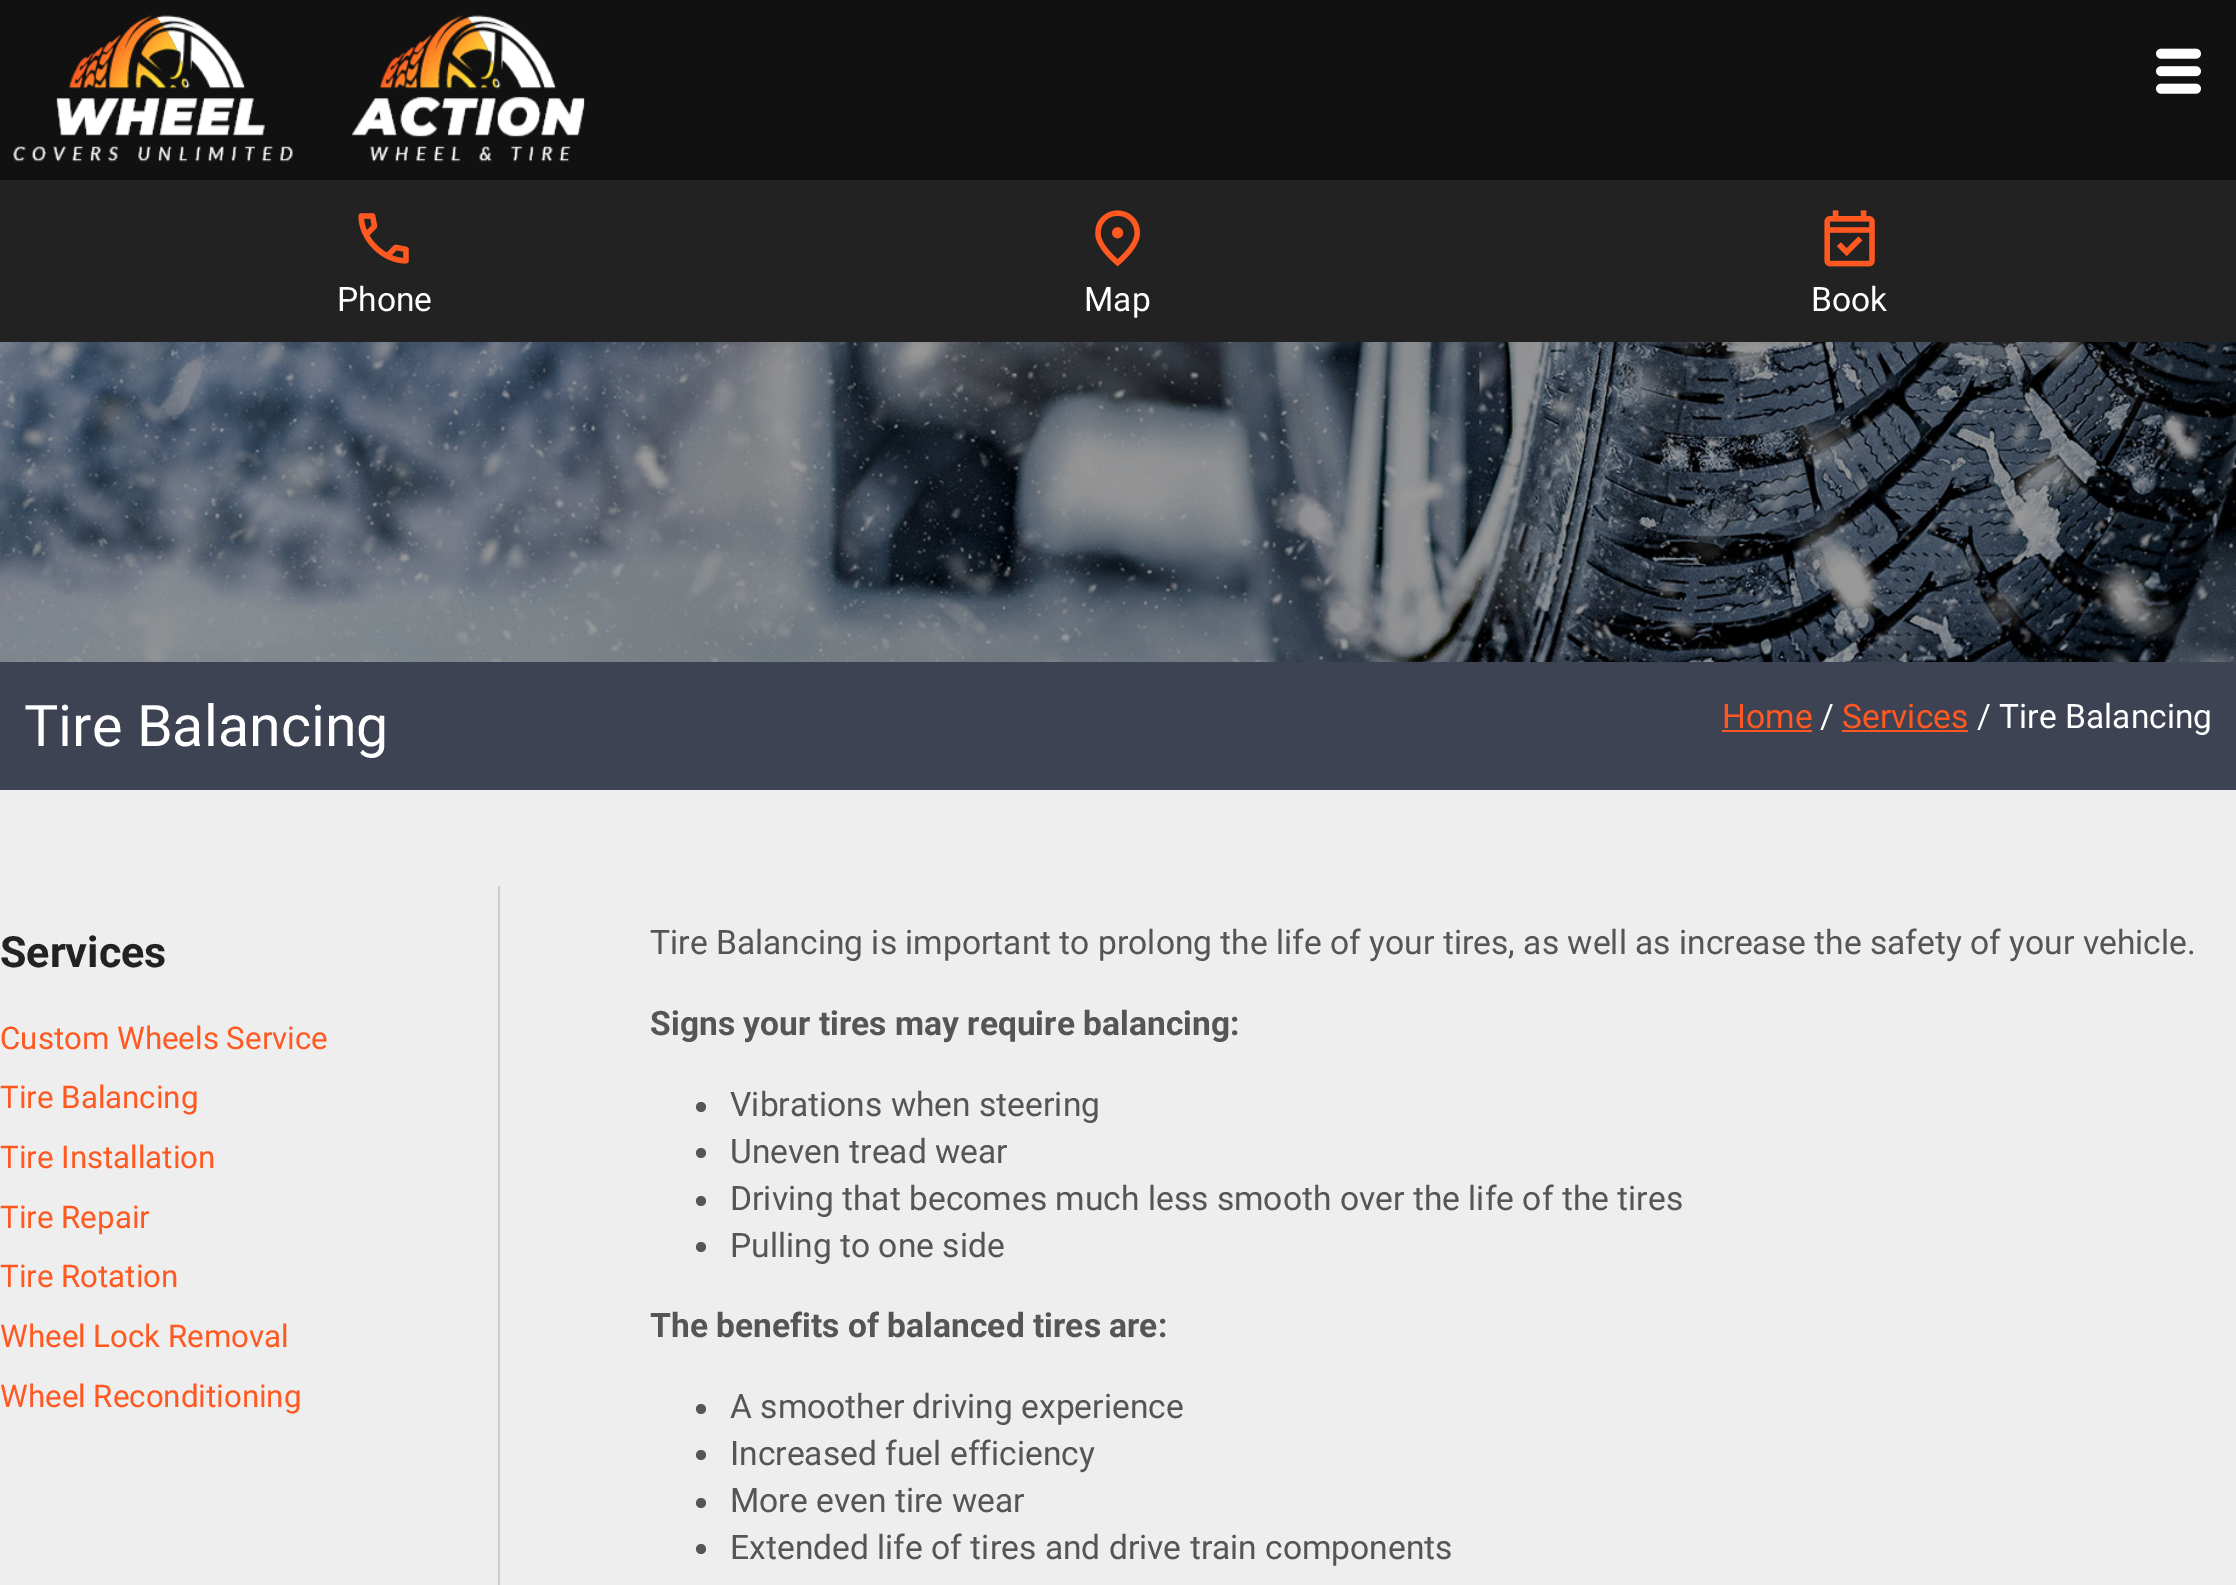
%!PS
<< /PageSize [2236 1585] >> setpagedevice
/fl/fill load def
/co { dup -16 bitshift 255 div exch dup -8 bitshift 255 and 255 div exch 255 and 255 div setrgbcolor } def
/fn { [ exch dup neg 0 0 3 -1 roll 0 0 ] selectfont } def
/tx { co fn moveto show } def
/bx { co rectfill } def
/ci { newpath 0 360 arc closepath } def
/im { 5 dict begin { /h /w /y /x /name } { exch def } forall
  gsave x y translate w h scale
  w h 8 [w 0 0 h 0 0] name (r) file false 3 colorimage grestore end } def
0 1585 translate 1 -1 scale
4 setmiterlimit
0 0 2236 1585 16#EEEEEE bx
0 0 2236 180 16#111111 bx
(media/1.raw) 13 14 572 148 im
(media/2.raw) 2156 48 45 46 im
0 180 2236 162 16#222222 bx
(media/3.raw) 358 213 51 51 im
(media/4.raw) 1095 210 45 57 im
(media/5.raw) 1824 210 51 57 im
(media/6.raw) 0 342 2236 320 im
0 662 2236 128 16#3D4353 bx
1722 730 90 2 16#FF5820 bx
1842 730 126 2 16#FF5820 bx
498 886 2 699 16#CCCCCC bx
16#555555 co
701 1107 5 ci fl
701 1153 5 ci fl
701 1201 5 ci fl
701 1247 5 ci fl
701 1409 5 ci fl
701 1455 5 ci fl
701 1503 5 ci fl
701 1549 5 ci fl
(Phone) 337 311 /Roboto-Regular 33.6 16#FFFFFF tx
(Map) 1084 311 /Roboto-Regular 33.6 16#FFFFFF tx
(Book) 1811 311 /Roboto-Regular 33.6 16#FFFFFF tx
(Tire Balancing) 24 746 /Roboto-Regular 57.5 16#FFFFFF tx
(Home) 1722 728 /Roboto-Regular 33.6 16#FF5820 tx
(/) 1820 728 /Roboto-Regular 33.6 16#FFFFFF tx
(Services) 1842 728 /Roboto-Regular 33.6 16#FF5820 tx
(/ Tire Balancing) 1977 728 /Roboto-Regular 33.6 16#FFFFFF tx
(Services) 0 967 /Roboto-Bold 43 16#222222 tx
(Custom Wheels Service) 0 1049 /Roboto-Regular 31.25 16#FF5820 tx
(Tire Balancing) 0 1108 /Roboto-Regular 31.25 16#FF5820 tx
(Tire Installation) 0 1168 /Roboto-Regular 31.25 16#FF5820 tx
(Tire Repair) 0 1228 /Roboto-Regular 31.25 16#FF5820 tx
(Tire Rotation) 0 1287 /Roboto-Regular 31.25 16#FF5820 tx
(Wheel Lock Removal) 0 1347 /Roboto-Regular 31.25 16#FF5820 tx
(Wheel Reconditioning) 0 1407 /Roboto-Regular 31.25 16#FF5820 tx
(Tire Balancing is important to prolong the life of your tires, as well as increase the safety of your vehicle.) 650 954 /Roboto-Regular 33.6 16#555555 tx
(Signs your tires may require balancing:) 650 1035 /Roboto-Bold 33.6 16#555555 tx
(Vibrations when steering) 730 1116 /Roboto-Regular 33.6 16#555555 tx
(Uneven tread wear) 730 1163 /Roboto-Regular 33.6 16#555555 tx
(Driving that becomes much less smooth over the life of the tires) 730 1210 /Roboto-Regular 33.6 16#555555 tx
(Pulling to one side) 730 1257 /Roboto-Regular 33.6 16#555555 tx
(The benefits of balanced tires are:) 650 1337 /Roboto-Bold 33.6 16#555555 tx
(A smoother driving experience) 730 1418 /Roboto-Regular 33.6 16#555555 tx
(Increased fuel efficiency) 730 1465 /Roboto-Regular 33.6 16#555555 tx
(More even tire wear) 730 1512 /Roboto-Regular 33.6 16#555555 tx
(Extended life of tires and drive train components) 730 1559 /Roboto-Regular 33.6 16#555555 tx
showpage
